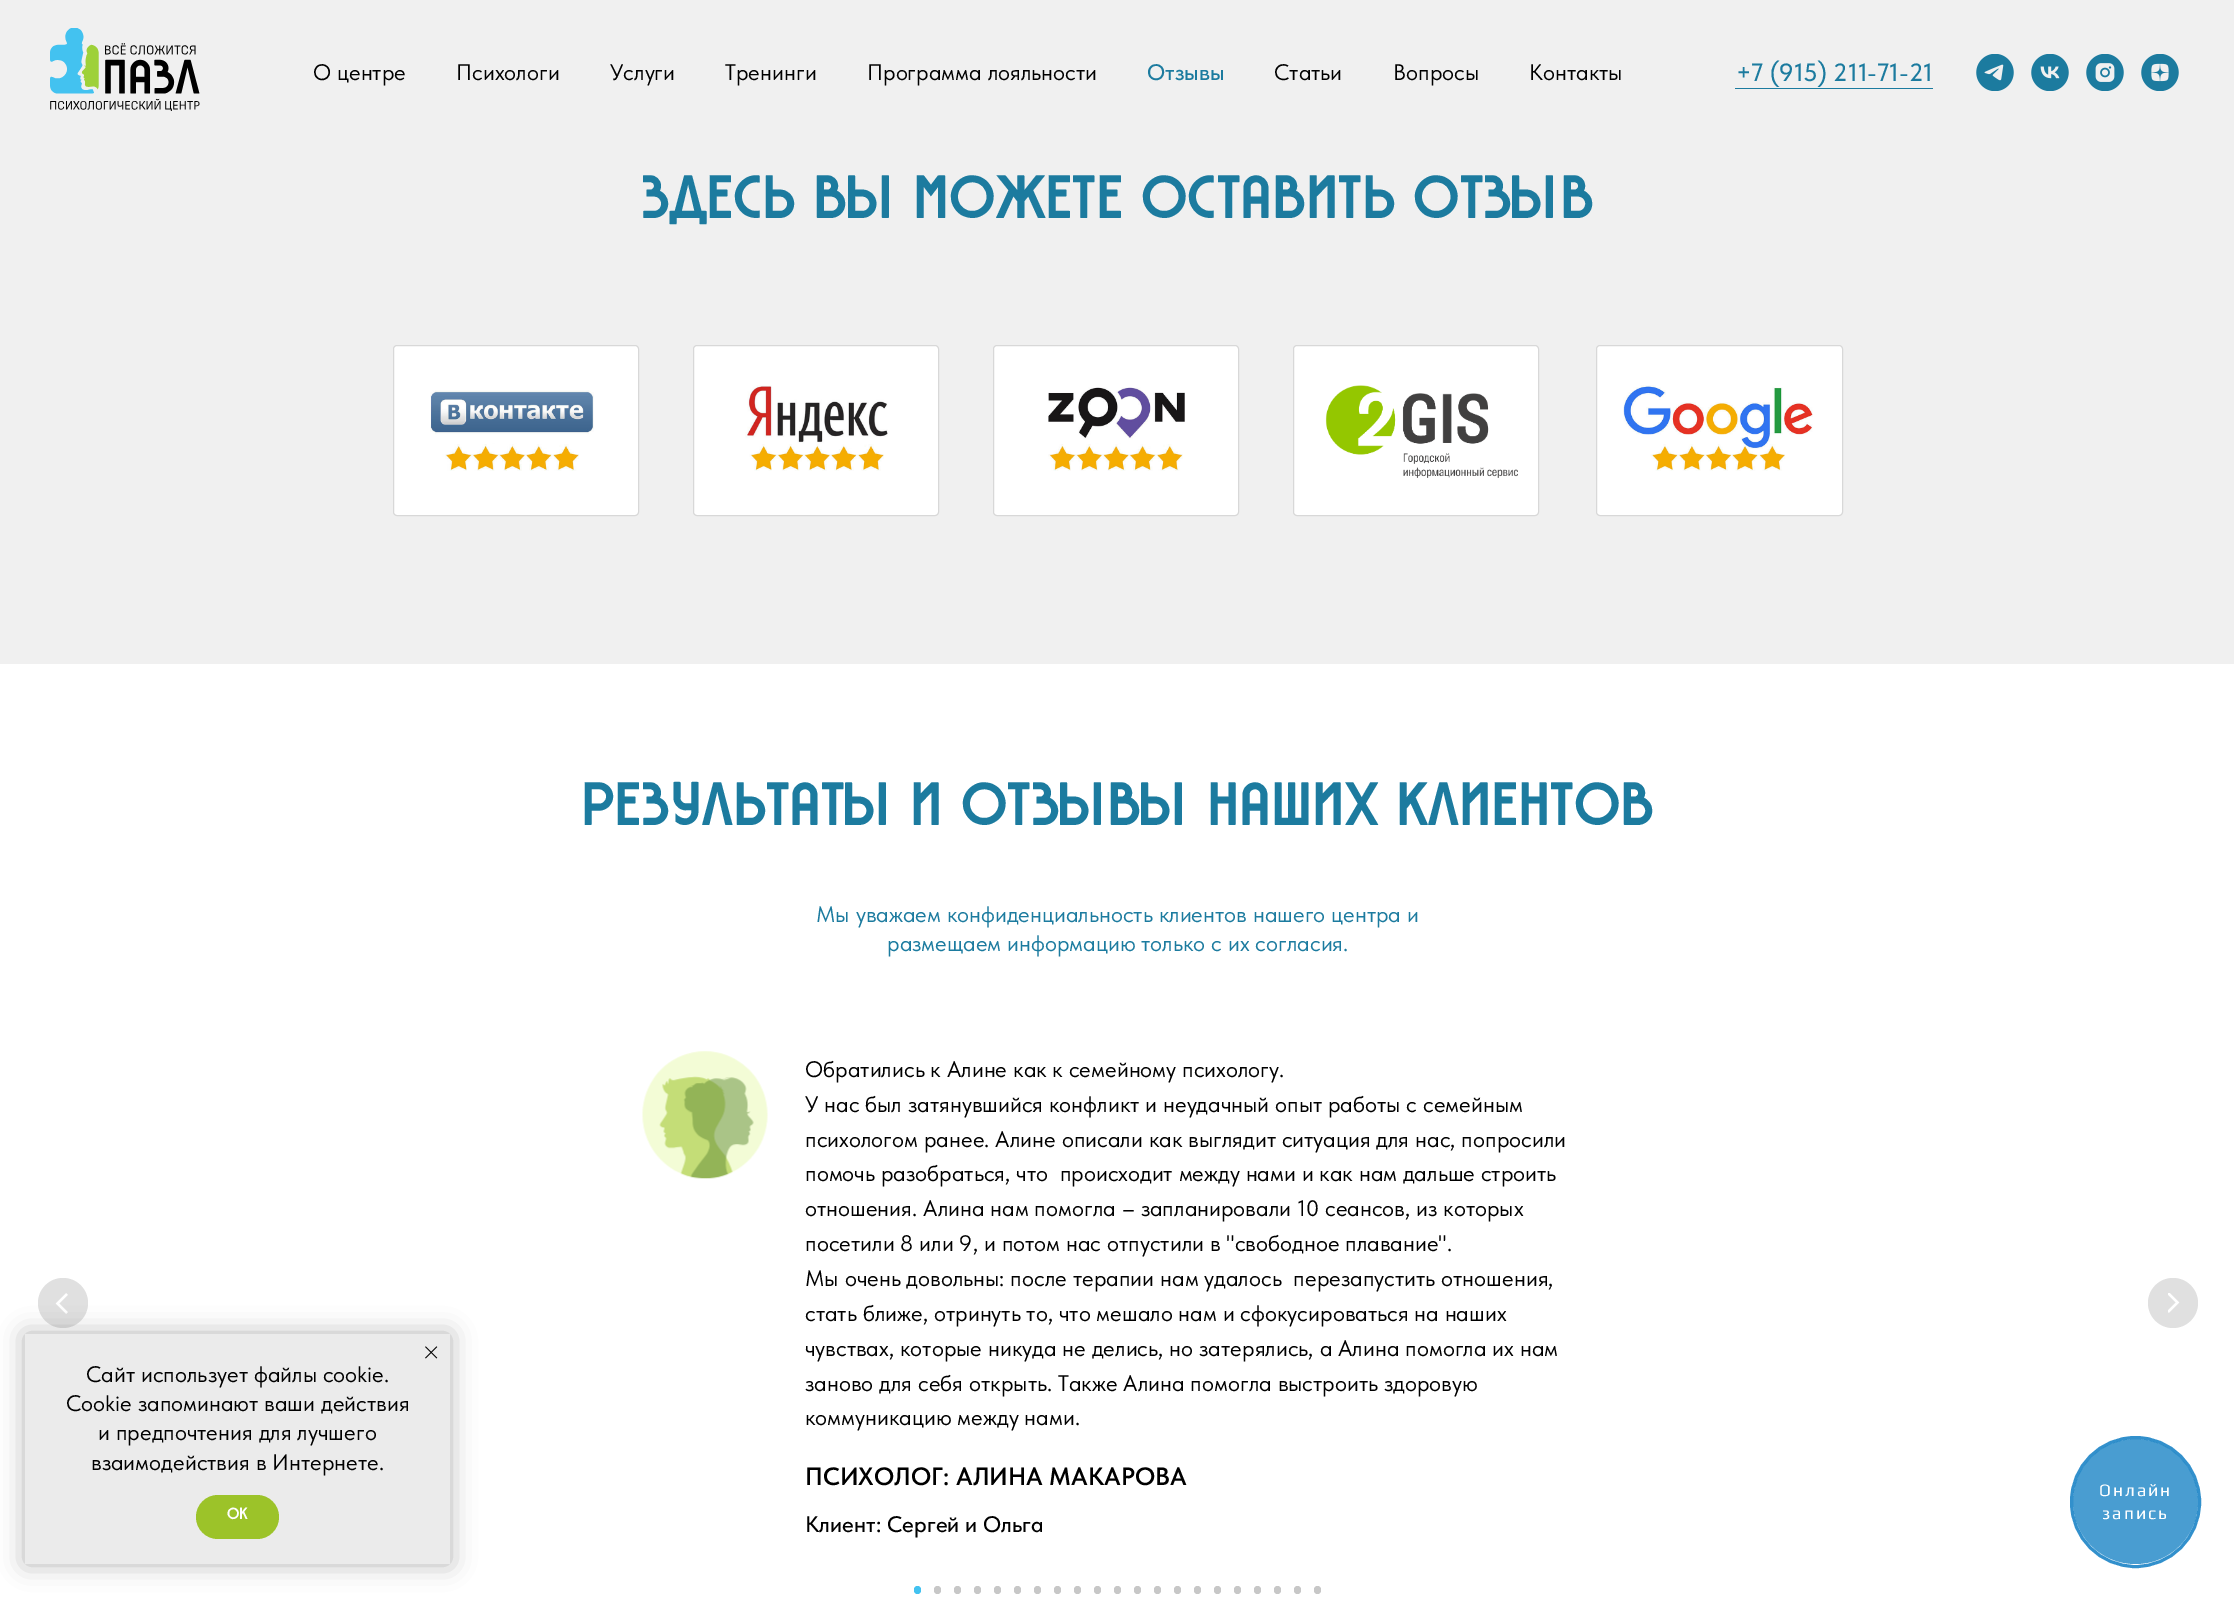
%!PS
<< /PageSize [2234 1601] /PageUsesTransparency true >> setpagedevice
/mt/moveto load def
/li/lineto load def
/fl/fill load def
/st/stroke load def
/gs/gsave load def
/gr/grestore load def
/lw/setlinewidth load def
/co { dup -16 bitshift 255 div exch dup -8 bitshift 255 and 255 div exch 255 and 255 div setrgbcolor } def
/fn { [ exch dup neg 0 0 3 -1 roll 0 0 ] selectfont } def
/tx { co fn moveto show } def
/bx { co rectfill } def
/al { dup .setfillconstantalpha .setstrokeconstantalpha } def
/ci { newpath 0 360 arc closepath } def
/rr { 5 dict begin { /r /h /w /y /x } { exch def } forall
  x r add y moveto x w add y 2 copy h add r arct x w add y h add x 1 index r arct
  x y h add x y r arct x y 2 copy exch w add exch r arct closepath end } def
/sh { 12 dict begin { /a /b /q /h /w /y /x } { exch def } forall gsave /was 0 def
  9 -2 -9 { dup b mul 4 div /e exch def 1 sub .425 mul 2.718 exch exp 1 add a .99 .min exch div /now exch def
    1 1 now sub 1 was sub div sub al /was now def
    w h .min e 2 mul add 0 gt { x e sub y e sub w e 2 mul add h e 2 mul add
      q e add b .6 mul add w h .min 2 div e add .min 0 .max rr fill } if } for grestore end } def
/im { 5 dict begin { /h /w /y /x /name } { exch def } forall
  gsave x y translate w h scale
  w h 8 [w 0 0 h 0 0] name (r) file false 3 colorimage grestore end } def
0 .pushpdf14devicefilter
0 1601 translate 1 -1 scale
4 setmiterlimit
0 0 2234 1601 16#FFFFFF bx
0 0 2234 664 16#F0F0F0 bx
(media/1.raw) 50 28 150 83 im
1735 88 198 1 16#1C7B9F bx
(media/2.raw) 1976 54 38 37 im
(media/3.raw) 2031 54 38 37 im
(media/4.raw) 2086 54 38 37 im
(media/5.raw) 2141 54 38 37 im
16#FFFFFF co
393.5 345.5 245 170 3.5 rr gs fl gr
16#D8D8D8 co
st
16#FFFFFF co
693.5 345.5 245 170 3.5 rr gs fl gr
16#D8D8D8 co
st
16#FFFFFF co
993.5 345.5 245 170 3.5 rr gs fl gr
16#D8D8D8 co
st
16#FFFFFF co
1293.5 345.5 245 170 3.5 rr gs fl gr
16#D8D8D8 co
st
16#FFFFFF co
1596.5 345.5 246 170 3.5 rr gs fl gr
16#D8D8D8 co
st
(media/6.raw) 430 390 164 81 im
(media/7.raw) 745 385 143 86 im
(media/8.raw) 1048 387 137 84 im
(media/9.raw) 1325 385 193 93 im
(media/10.raw) 1623 385 190 86 im
16#E0E0E0 co
63 1303 25 ci fl
16#FFFFFF co
2.4 lw
67 1313 mt 57.5 1303.5 li 67 1294 li st
16#000000 co
25 1334 425 230 0 12.5 .3 sh
25 1334 425 230 16#EBEBEB bx
(media/11.raw) 425 1346 13 13 im
16#9CC329 co
196 1495 83 44 22 rr fl
(media/12.raw) 642 1051 126 128 im
16#E0E0E0 co
2173 1303 25 ci fl
gs
2168 1293 12 21 rectclip
16#FFFFFF co
2168 1293 mt 2177.5 1302.5 li 2168 1312 li st
gr
16#43C2F0 co
914 1586 7 8 3.5 rr fl
16#C7C7C7 co
934 1586 7 8 3.5 rr fl
954 1586 7 8 3.5 rr fl
974 1586 7 8 3.5 rr fl
994 1586 7 8 3.5 rr fl
1014 1586 7 8 3.5 rr fl
1034 1586 7 8 3.5 rr fl
1054 1586 7 8 3.5 rr fl
1074 1586 7 8 3.5 rr fl
1094 1586 7 8 3.5 rr fl
1114 1586 7 8 3.5 rr fl
1134 1586 7 8 3.5 rr fl
1154 1586 7 8 3.5 rr fl
1174 1586 7 8 3.5 rr fl
1194 1586 7 8 3.5 rr fl
1214 1586 7 8 3.5 rr fl
1234 1586 7 8 3.5 rr fl
1254 1586 7 8 3.5 rr fl
1274 1586 7 8 3.5 rr fl
1294 1586 7 8 3.5 rr fl
1314 1586 7 8 3.5 rr fl
16#499DD1 co
2135.5 1501.5 62.5 ci fl
0.9 al
16#1C84C6 co
3 lw
2071.5 1437.5 128 129 64 rr st
1 al
(О центре) 313 80 /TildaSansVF-Regular 22.5 16#000000 tx
(Психологи) 456 80 /TildaSansVF-Regular 22.5 16#000000 tx
(Услуги) 610 80 /TildaSansVF-Regular 22.5 16#000000 tx
(Тренинги) 725 80 /TildaSansVF-Regular 22.5 16#000000 tx
(Программа лояльности) 867 80 /TildaSansVF-Regular 22.5 16#000000 tx
(Отзывы) 1147 80 /TildaSansVF-Medium 22.5 16#1C7B9F tx
(Статьи) 1274 80 /TildaSansVF-Regular 22.5 16#000000 tx
(Вопросы) 1393 80 /TildaSansVF-Regular 22.5 16#000000 tx
(Контакты) 1529 80 /TildaSansVF-Regular 22.5 16#000000 tx
(+7 \(915\) 211-71-21) 1736 81 /TildaSansVF-Medium 25 16#1C7B9F tx
(ЗДЕСЬ ВЫ МОЖЕТЕ ОСТАВИТЬ ОТЗЫВ) 641 218 /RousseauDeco-Bold 60 16#1C7B9F tx
(РЕЗУЛЬТАТЫ И ОТЗЫВЫ НАШИХ КЛИЕНТОВ) 581 825 /RousseauDeco-Bold 60 16#1C7B9F tx
(Мы уважаем конфиденциальность клиентов нашего центра и) 816 922 /TildaSansVF-Regular 22.5 16#1C7B9F tx
(размещаем информацию только с их согласия.) 887 951 /TildaSansVF-Regular 22.5 16#1C7B9F tx
(Сайт использует файлы cookie.) 86 1382 /TildaSansVF-Regular 22.5 16#000000 tx
(Cookie запоминают ваши действия) 66 1411 /TildaSansVF-Regular 22.5 16#000000 tx
(и предпочтения для лучшего) 98 1440 /TildaSansVF-Regular 22.5 16#000000 tx
(взаимодействия в Интернете.) 91 1470 /TildaSansVF-Regular 22.5 16#000000 tx
(OK) 227 1519 /RousseauDeco-Bold 16 16#FFFFFF tx
(Обратились к Алине как к семейному психологу.) 805 1077 /TildaSansVF-Regular 22.5 16#000000 tx
(У нас был затянувшийся конфликт и неудачный опыт работы с семейным) 805 1112 /TildaSansVF-Regular 22.5 16#000000 tx
(психологом ранее. Алине описали как выглядит ситуация для нас, попросили) 805 1147 /TildaSansVF-Regular 22.5 16#000000 tx
(помочь разобраться, что  происходит между нами и как нам дальше строить) 805 1181 /TildaSansVF-Regular 22.5 16#000000 tx
(отношения. Алина нам помогла – запланировали 10 сеансов, из которых) 805 1216 /TildaSansVF-Regular 22.5 16#000000 tx
(посетили 8 или 9, и потом нас отпустили в "свободное плавание".) 805 1251 /TildaSansVF-Regular 22.5 16#000000 tx
(Мы очень довольны: после терапии нам удалось  перезапустить отношения,) 805 1286 /TildaSansVF-Regular 22.5 16#000000 tx
(стать ближе, отринуть то, что мешало нам и сфокусироваться на наших) 805 1321 /TildaSansVF-Regular 22.5 16#000000 tx
(чувствах, которые никуда не делись, но затерялись, а Алина помогла их нам) 805 1356 /TildaSansVF-Regular 22.5 16#000000 tx
(заново для себя открыть. Также Алина помогла выстроить здоровую) 805 1391 /TildaSansVF-Regular 22.5 16#000000 tx
(коммуникацию между нами.) 805 1425 /TildaSansVF-Regular 22.5 16#000000 tx
(ПСИХОЛОГ: АЛИНА МАКАРОВА) 805 1485 /TildaSansVF-SemiBold 25 16#000000 tx
(Клиент: Сергей и Ольга) 805 1532 /TildaSansVF-Medium 22.5 16#000000 tx
/Play-Regular 17.5 fn
16#FFFFFF co
2099 1496 mt 2 0 (Онлайн) ashow
2102 1519 mt 2 0 (запись) ashow
.poppdf14devicefilter showpage
